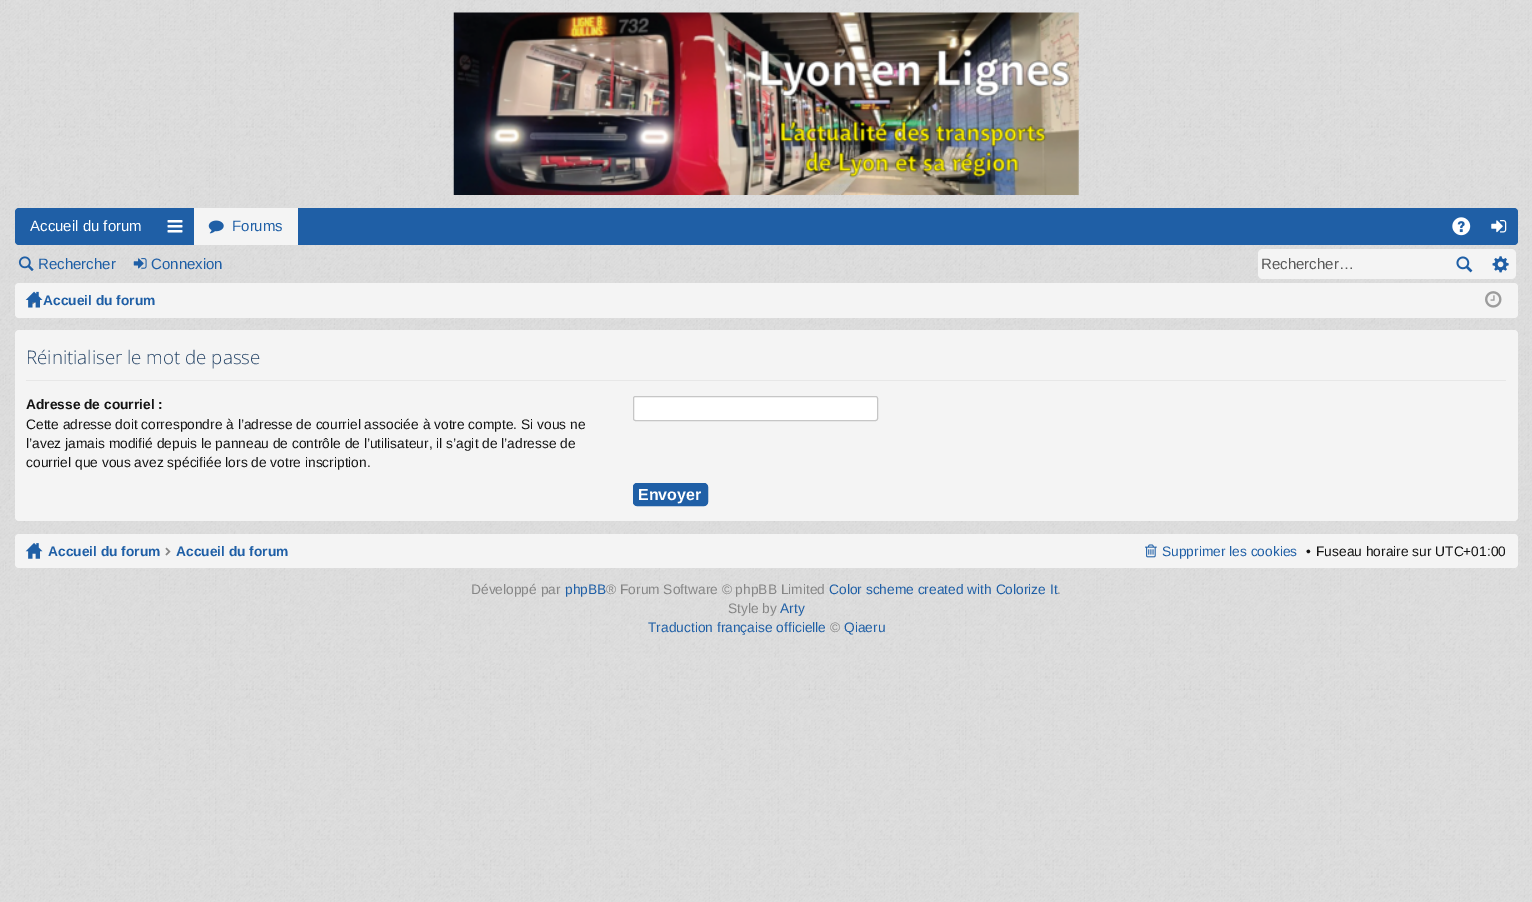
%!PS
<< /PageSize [1532 902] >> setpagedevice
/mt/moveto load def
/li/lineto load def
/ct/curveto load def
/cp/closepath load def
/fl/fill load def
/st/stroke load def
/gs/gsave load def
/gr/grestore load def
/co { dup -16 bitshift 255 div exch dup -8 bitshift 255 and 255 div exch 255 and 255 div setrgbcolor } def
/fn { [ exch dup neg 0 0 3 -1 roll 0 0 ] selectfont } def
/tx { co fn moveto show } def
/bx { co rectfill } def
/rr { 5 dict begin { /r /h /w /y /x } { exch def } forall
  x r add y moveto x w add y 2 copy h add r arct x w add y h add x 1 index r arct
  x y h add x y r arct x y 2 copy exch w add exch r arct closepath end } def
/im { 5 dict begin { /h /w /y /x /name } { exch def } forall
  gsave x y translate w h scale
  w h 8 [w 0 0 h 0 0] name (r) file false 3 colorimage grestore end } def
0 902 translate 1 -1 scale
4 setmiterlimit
0 0 1532 902 16#E0E0E0 bx
(media/1.raw) 0 0 1532 902 im
(media/2.raw) 453 12 626 183 im
16#1F5FA6 co
15 208 1503 37 4 rr fl
(media/3.raw) 167 220 16 13 im
194 208 104 37 16#F4F4F4 bx
(media/4.raw) 208 220 16 14 im
(media/5.raw) 1452 217 19 19 im
(media/6.raw) 1491 220 16 13 im
(media/7.raw) 18 256 16 15 im
(media/8.raw) 133 258 14 11 im
1263 249 mt 1445 249 li 1445 279 li 1263 279 li 1260 279 1258 277 1258 274 ct 1258 254 li 1258 251 1260 249 1263 249 ct cp fl
1445 249 38 30 16#F4F4F4 bx
(media/9.raw) 1456 256 17 17 im
1483 249 mt 1511 249 li 1514 249 1516 251 1516 254 ct 1516 274 li 1516 277 1514 279 1511 279 ct 1483 279 li cp fl
(media/10.raw) 1492 256 17 17 im
15 283 1503 35 4 rr fl
(media/12.raw) 32 302 3 3 im
(media/11.raw) 25 291 18 17 im
(media/13.raw) 1485 291 17 17 im
15 330 1503 191 4 rr fl
26 380 1480 1 16#E7E7E7 bx
16#FFFFFF co
633.5 396.5 244 24 2 rr gs fl gr
16#C6C6C6 co
st
16#1F5FA6 co
633.5 483.5 74 22 3.5 rr gs fl gr
st
16#F4F4F4 co
15 534 1503 34 4 rr fl
(media/14.raw) 25 543 18 16 im
(media/15.raw) 165 547 6 9 im
(media/16.raw) 1145 544 12 14 im
(Accueil du forum) 30 231 /LiberationSans-Regular 15 16#FFFFFF tx
(Forums) 232 231 /LiberationSans-Regular 15 16#1F5FA6 tx
(Rechercher) 38 269 /LiberationSans-Regular 15 16#1F5FA6 tx
(Connexion) 151 269 /LiberationSans-Regular 15 16#1F5FA6 tx
(Rechercher…) 1261 269 /LiberationSans-Regular 15 16#5A5A5A tx
(Accueil du forum) 43 305 /LiberationSans-Bold 13.75 16#1F5FA6 tx
(Réinitialiser le mot de passe) 26 364 /OpenSans-Light 18.75 16#294769 tx
(Adresse de courriel :) 26 409 /LiberationSans-Bold 13.75 16#141414 tx
(Cette adresse doit correspondre à l’adresse de courriel associée à votre compte. Si vous ne) 26 429 /LiberationSans-Regular 13.75 16#141414 tx
(l’avez jamais modifié depuis le panneau de contrôle de l’utilisateur, il s’agit de l’adresse de) 26 448 /LiberationSans-Regular 13.75 16#141414 tx
(courriel que vous avez spécifiée lors de votre inscription.) 26 467 /LiberationSans-Regular 13.75 16#141414 tx
(Envoyer) 638 500 /LiberationSans-Bold 16 16#FFFFFF tx
(Accueil du forum) 48 556 /LiberationSans-Bold 13.75 16#1F5FA6 tx
(Accueil du forum) 176 556 /LiberationSans-Bold 13.75 16#1F5FA6 tx
(Supprimer les cookies) 1162 556 /LiberationSans-Regular 13.75 16#1F5FA6 tx
(•) 1306 556 /LiberationSans-Regular 13.75 16#141414 tx
(Fuseau horaire sur UTC+01:00) 1316 556 /LiberationSans-Regular 13.75 16#141414 tx
(Développé par) 471 594 /LiberationSans-Regular 13.75 16#868686 tx
(phpBB) 565 594 /LiberationSans-Regular 13.75 16#1F5FA6 tx
(® Forum Software © phpBB Limited) 606 594 /LiberationSans-Regular 13.75 16#868686 tx
(Color scheme created with Colorize It) 829 594 /LiberationSans-Regular 13.75 16#1F5FA6 tx
(.) 1057 594 /LiberationSans-Regular 13.75 16#868686 tx
(Style by) 728 613 /LiberationSans-Regular 13.75 16#868686 tx
(Arty) 780 613 /LiberationSans-Regular 13.75 16#1F5FA6 tx
(Traduction française officielle) 648 632 /LiberationSans-Regular 13.75 16#1F5FA6 tx
(©) 830 632 /LiberationSans-Regular 13.75 16#868686 tx
(Qiaeru) 844 632 /LiberationSans-Regular 13.75 16#1F5FA6 tx
showpage
